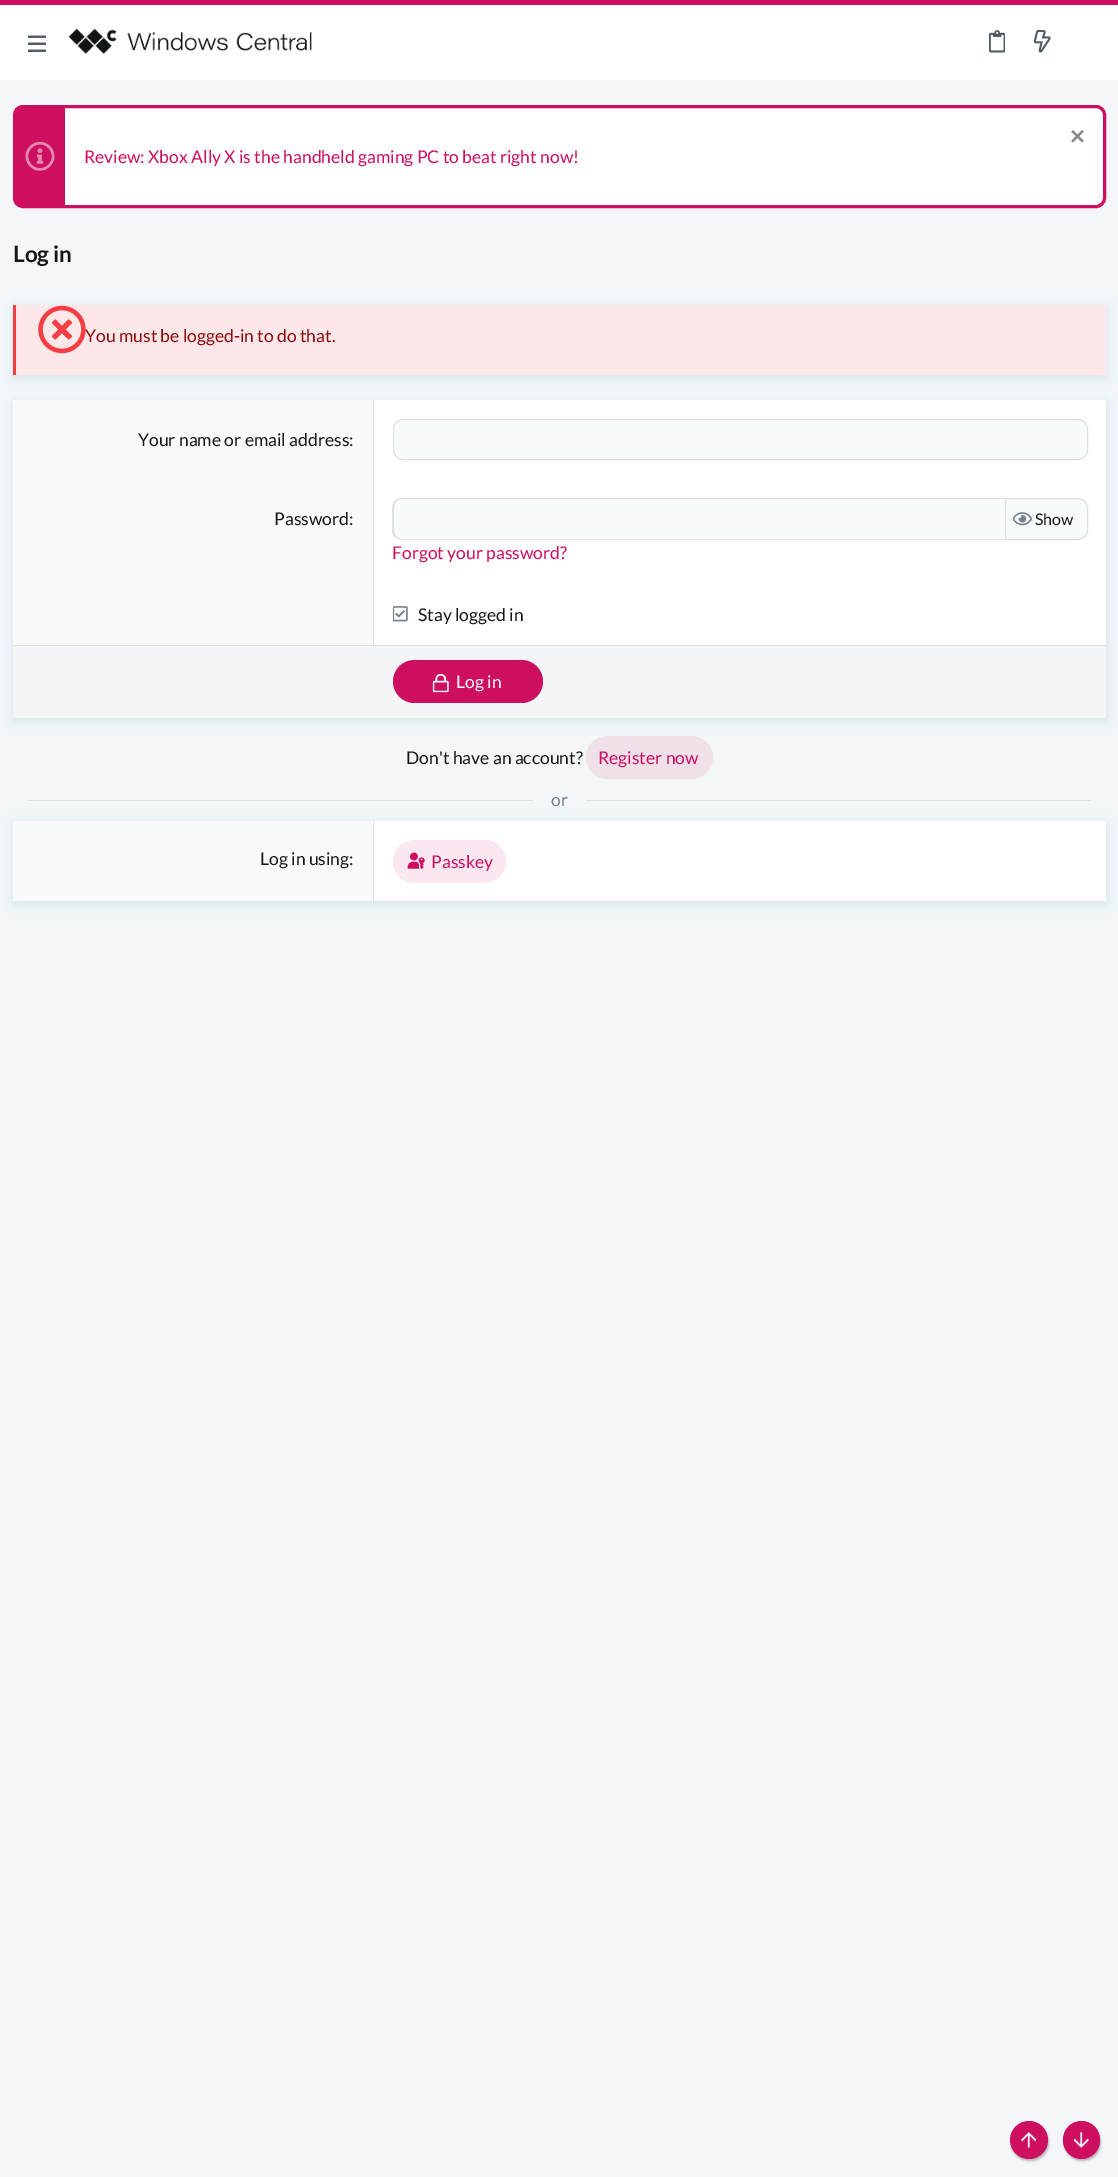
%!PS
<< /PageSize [1118 2177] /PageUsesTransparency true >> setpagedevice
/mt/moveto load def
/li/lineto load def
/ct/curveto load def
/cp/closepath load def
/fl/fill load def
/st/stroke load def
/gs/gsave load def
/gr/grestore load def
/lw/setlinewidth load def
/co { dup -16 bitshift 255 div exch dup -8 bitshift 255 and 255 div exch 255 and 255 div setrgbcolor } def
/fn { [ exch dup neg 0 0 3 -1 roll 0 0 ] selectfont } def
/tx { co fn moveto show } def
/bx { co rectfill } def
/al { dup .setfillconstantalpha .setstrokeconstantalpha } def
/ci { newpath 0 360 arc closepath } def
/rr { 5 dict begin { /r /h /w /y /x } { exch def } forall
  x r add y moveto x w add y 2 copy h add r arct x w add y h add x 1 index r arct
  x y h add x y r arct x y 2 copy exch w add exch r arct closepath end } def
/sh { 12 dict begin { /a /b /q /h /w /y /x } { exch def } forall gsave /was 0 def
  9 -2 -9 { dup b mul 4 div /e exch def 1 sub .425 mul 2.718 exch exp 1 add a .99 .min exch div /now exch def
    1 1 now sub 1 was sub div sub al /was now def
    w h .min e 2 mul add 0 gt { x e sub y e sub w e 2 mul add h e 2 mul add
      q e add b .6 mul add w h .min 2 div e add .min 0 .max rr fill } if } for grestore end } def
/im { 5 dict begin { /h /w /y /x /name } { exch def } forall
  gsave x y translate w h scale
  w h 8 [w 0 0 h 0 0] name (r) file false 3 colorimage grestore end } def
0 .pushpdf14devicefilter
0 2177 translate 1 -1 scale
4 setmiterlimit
0 0 1118 2177 16#F4F7F9 bx
0 5 1118 75 16#FFFFFF bx
0 0 1118 5 16#CE0E5F bx
(media/1.raw) 28 35 18 17 im
(media/2.raw) 68 28 244 26 im
(media/3.raw) 989 30 16 23 im
(media/4.raw) 1034 30 17 23 im
16#FFFFFF co
14.5 106.5 1090 100 8.5 rr gs fl gr
16#CE0E5F co
3 lw
st
15 108 50 97 16#CE0E5F bx
(media/5.raw) 25 141 30 30 im
(media/6.raw) 1071 130 13 13 im
16#6B7780 co
15 305 1094 70 0 5 .08 sh
13 310 1093 70 0 5 .12 sh
16 305 1090 70 16#FEE7E8 bx
13 305 3 70 16#F53D43 bx
16#6B7780 co
15 400 1094 318 0 5 .08 sh
13 405 1093 318 0 5 .12 sh
374 400 732 245 16#FFFFFF bx
13 400 360 245 16#F9FAFA bx
373 400 1 245 16#E0E0E0 bx
16#F9FAFA co
393.5 419.5 694 40 9.5 rr gs fl gr
16#E0E0E0 co
1 lw
st
16#F9FAFA co
403 498 mt 1005 498 li 1005 540 li 403 540 li 397.5 540 393 535.5 393 530 ct 393 508 li 393 502.5 397.5 498 403 498 ct cp fl
16#E0E0E0 co
402 498 mt 1005 498 li 1005 540 li 402 540 li 397 540 392 536 392 530 ct 392 508 li 392 502 397 498 402 498 ct cp 402 499 mt 1005 499 li 1005 539 li 402 539 li 398 539 394 535 394 530 ct 394 508 li 394 503 398 499 402 499 ct cp eofill
16#F9FAFA co
1005.5 498.5 mt 1078 498.5 li 1083 498.5 1087.5 503 1087.5 508 ct 1087.5 530 li 1087.5 535 1083 539.5 1078 539.5 ct 1005.5 539.5 li cp gs fl gr
16#E0E0E0 co
st
(media/8.raw) 1013 512 20 14 im
(media/9.raw) 393 606 15 16 im
13 646 1093 72 16#F4F5F6 bx
13 645 1093 1 16#E0E0E0 bx
16#CE0E5F co
393 660 150 43 21.5 rr fl
(media/10.raw) 432 674 17 19 im
16#F0E0EA co
586 736 127 43 21.5 rr fl
28 800 505 1 16#E0E0E0 bx
586 800 505 1 16#E0E0E0 bx
16#6B7780 co
15 821 1094 80 0 5 .08 sh
13 826 1093 80 0 5 .12 sh
374 821 732 80 16#FFFFFF bx
13 821 360 80 16#F9FAFA bx
373 821 1 80 16#E0E0E0 bx
16#FAE7EF co
393 840 113 43 21.5 rr fl
(media/11.raw) 407 852 18 18 im
16#000000 co
1011 2124 38 37 18.5 1 .25 sh
16#CE0E5F co
1029 2140 19 ci fl
(media/12.raw) 1021 2132 16 17 im
16#000000 co
1064 2124 37 37 18.5 1 .25 sh
16#CE0E5F co
1063 2121 37 38 18.5 rr fl
(media/13.raw) 1073 2132 16 17 im
(Review: Xbox Ally X is the handheld gaming PC to beat right now!) 84 163 /Lato-Regular 17.5 16#CE0E5F tx
(Log in) 13 262 /Lato-Bold 22.5 16#141618 tx
(You must be logged-in to do that.) 85 342 /Lato-Regular 17.5 16#91080C tx
(media/7.raw) 38 305 48 49 im
(Your name or email address:) 138 446 /Lato-Regular 17.5 16#141618 tx
(Password:) 274 525 /Lato-Regular 17.5 16#141618 tx
(Show) 1035 525 /Lato-Regular 16 16#141618 tx
(Forgot your password?) 392 559 /Lato-Regular 17.5 16#CE0E5F tx
(Stay logged in) 418 621 /Lato-Regular 17.5 16#141618 tx
(Log in) 456 688 /Lato-Regular 17.5 16#FFFFFF tx
(Don't have an account?) 406 764 /Lato-Regular 17.5 16#141618 tx
(Register now) 598 764 /Lato-Regular 17.5 16#CE0E5F tx
(or) 551 806 /Lato-Regular 17.5 16#76818D tx
(Log in using:) 260 865 /Lato-Regular 17.5 16#141618 tx
(Passkey) 431 868 /Lato-Regular 17.5 16#CE0E5F tx
.poppdf14devicefilter showpage
